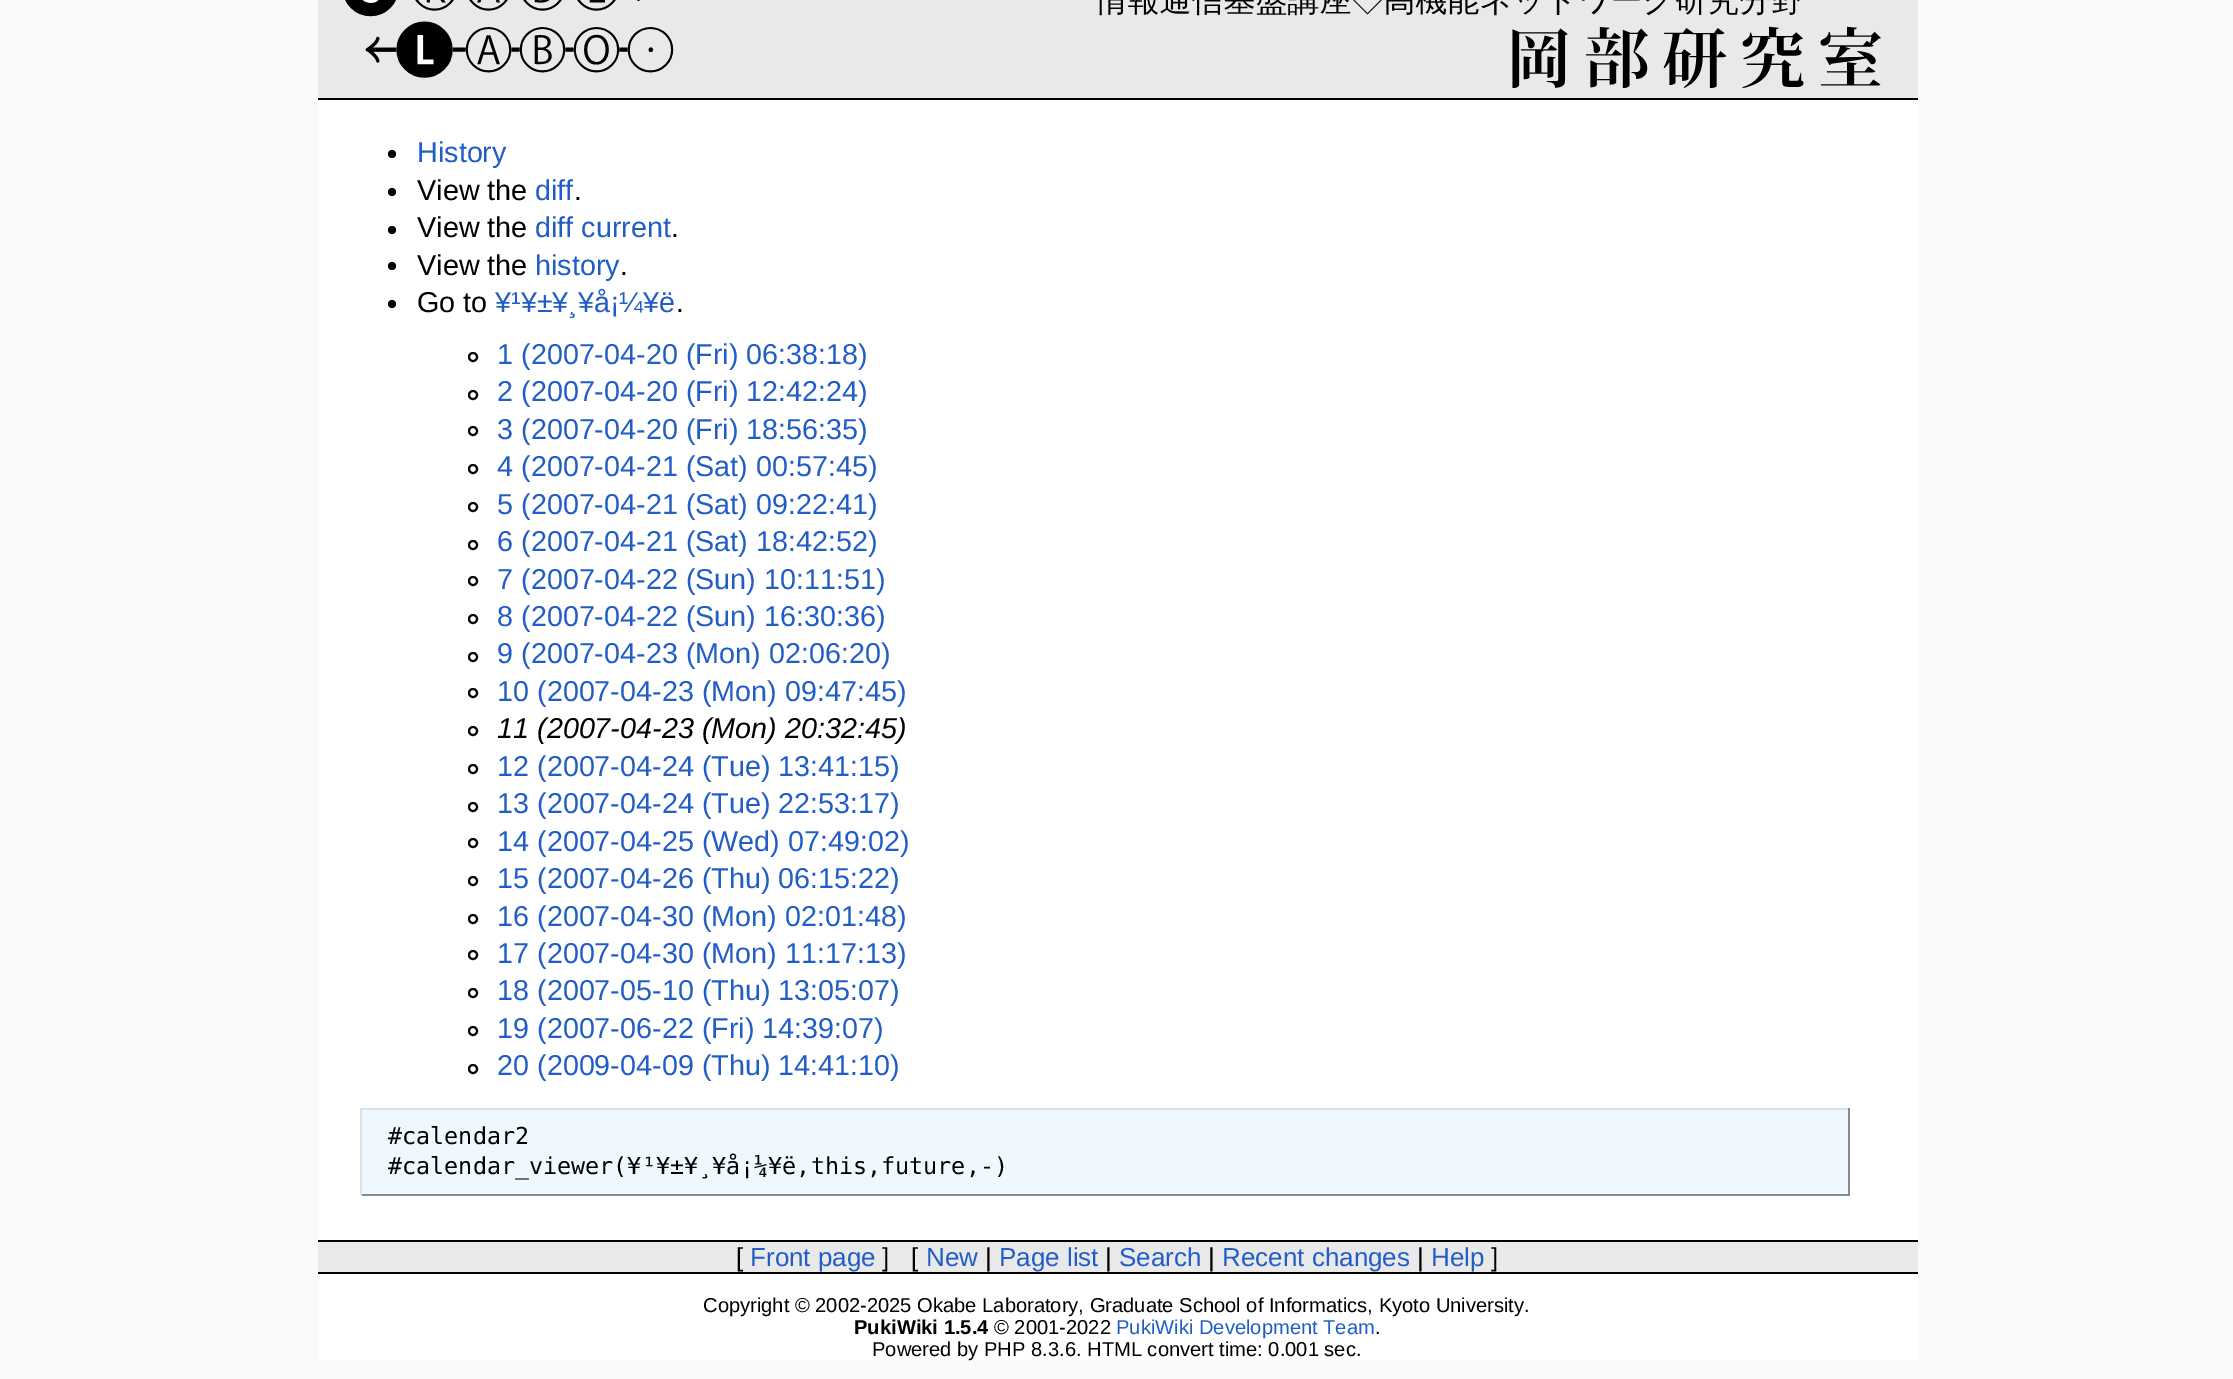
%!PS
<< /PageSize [2233 1379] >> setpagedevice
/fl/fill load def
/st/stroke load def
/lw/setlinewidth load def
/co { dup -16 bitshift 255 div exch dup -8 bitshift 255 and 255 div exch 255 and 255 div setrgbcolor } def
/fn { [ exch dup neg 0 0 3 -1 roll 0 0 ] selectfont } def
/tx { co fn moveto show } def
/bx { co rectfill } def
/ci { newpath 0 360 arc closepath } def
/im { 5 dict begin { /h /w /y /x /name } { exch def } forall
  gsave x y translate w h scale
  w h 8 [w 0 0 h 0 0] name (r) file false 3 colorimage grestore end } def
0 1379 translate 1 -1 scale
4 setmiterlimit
0 0 2233 1379 16#F9F9F9 bx
318 100 1600 1260 16#FFFFFF bx
318 0 1600 98 16#E9E9E9 bx
318 98 1600 2 16#000000 bx
(media/1.raw) 345 0 1536 88 im
392 154 4 ci fl
392 192 4 ci fl
392 230 4 ci fl
392 266 4 ci fl
392 304 4 ci fl
2 lw
473 357 4 ci st
473 395 4 ci st
473 431 4 ci st
473 469 4 ci st
473 507 4 ci st
473 545 4 ci st
473 581 4 ci st
473 619 4 ci st
473 657 4 ci st
473 693 4 ci st
473 731 4 ci st
473 769 4 ci st
473 807 4 ci st
473 843 4 ci st
473 881 4 ci st
473 919 4 ci st
473 955 4 ci st
473 993 4 ci st
473 1031 4 ci st
473 1069 4 ci st
362 1110 1486 84 16#F0F8FF bx
360 1108 1490 2 16#DDDDEE bx
1848 1108 2 88 16#888899 bx
360 1194 1490 2 16#888899 bx
360 1108 2 88 16#DDDDEE bx
318 1242 1600 30 16#E9E9E9 bx
318 1240 1600 2 16#000000 bx
318 1272 1600 2 16#000000 bx
(History) 417 162 /LiberationSans-Regular 28.75 16#215DC6 tx
(View the) 417 200 /LiberationSans-Regular 28.75 16#000000 tx
(diff) 535 200 /LiberationSans-Regular 28.75 16#215DC6 tx
(.) 574 200 /LiberationSans-Regular 28.75 16#000000 tx
(View the) 417 237 /LiberationSans-Regular 28.75 16#000000 tx
(diff current) 535 237 /LiberationSans-Regular 28.75 16#215DC6 tx
(.) 671 237 /LiberationSans-Regular 28.75 16#000000 tx
(View the) 417 275 /LiberationSans-Regular 28.75 16#000000 tx
(history) 535 275 /LiberationSans-Regular 28.75 16#215DC6 tx
(.) 620 275 /LiberationSans-Regular 28.75 16#000000 tx
(Go to) 417 312 /LiberationSans-Regular 28.75 16#000000 tx
(¥¹¥±¥¸¥å¡¼¥ë) 495 312 /LiberationSans-Regular 28.75 16#215DC6 tx
(.) 676 312 /LiberationSans-Regular 28.75 16#000000 tx
(1 \(2007-04-20 \(Fri\) 06:38:18\)) 497 364 /LiberationSans-Regular 28.75 16#215DC6 tx
(2 \(2007-04-20 \(Fri\) 12:42:24\)) 497 401 /LiberationSans-Regular 28.75 16#215DC6 tx
(3 \(2007-04-20 \(Fri\) 18:56:35\)) 497 439 /LiberationSans-Regular 28.75 16#215DC6 tx
(4 \(2007-04-21 \(Sat\) 00:57:45\)) 497 476 /LiberationSans-Regular 28.75 16#215DC6 tx
(5 \(2007-04-21 \(Sat\) 09:22:41\)) 497 514 /LiberationSans-Regular 28.75 16#215DC6 tx
(6 \(2007-04-21 \(Sat\) 18:42:52\)) 497 551 /LiberationSans-Regular 28.75 16#215DC6 tx
(7 \(2007-04-22 \(Sun\) 10:11:51\)) 497 589 /LiberationSans-Regular 28.75 16#215DC6 tx
(8 \(2007-04-22 \(Sun\) 16:30:36\)) 497 626 /LiberationSans-Regular 28.75 16#215DC6 tx
(9 \(2007-04-23 \(Mon\) 02:06:20\)) 497 663 /LiberationSans-Regular 28.75 16#215DC6 tx
(10 \(2007-04-23 \(Mon\) 09:47:45\)) 497 701 /LiberationSans-Regular 28.75 16#215DC6 tx
(11 \(2007-04-23 \(Mon\) 20:32:45\)) 497 738 /LiberationSans-Italic 28.75 16#000000 tx
(12 \(2007-04-24 \(Tue\) 13:41:15\)) 497 776 /LiberationSans-Regular 28.75 16#215DC6 tx
(13 \(2007-04-24 \(Tue\) 22:53:17\)) 497 813 /LiberationSans-Regular 28.75 16#215DC6 tx
(14 \(2007-04-25 \(Wed\) 07:49:02\)) 497 851 /LiberationSans-Regular 28.75 16#215DC6 tx
(15 \(2007-04-26 \(Thu\) 06:15:22\)) 497 888 /LiberationSans-Regular 28.75 16#215DC6 tx
(16 \(2007-04-30 \(Mon\) 02:01:48\)) 497 926 /LiberationSans-Regular 28.75 16#215DC6 tx
(17 \(2007-04-30 \(Mon\) 11:17:13\)) 497 963 /LiberationSans-Regular 28.75 16#215DC6 tx
(18 \(2007-05-10 \(Thu\) 13:05:07\)) 497 1000 /LiberationSans-Regular 28.75 16#215DC6 tx
(19 \(2007-06-22 \(Fri\) 14:39:07\)) 497 1038 /LiberationSans-Regular 28.75 16#215DC6 tx
(20 \(2009-04-09 \(Thu\) 14:41:10\)) 497 1075 /LiberationSans-Regular 28.75 16#215DC6 tx
(#calendar2) 388 1144 /DejaVuSansMono-Regular 23.4 16#000000 tx
(#calendar_viewer\(¥¹¥±¥¸¥å¡¼¥ë,this,future,-\)) 388 1174 /DejaVuSansMono-Regular 23.4 16#000000 tx
([) 736 1266 /LiberationSans-Regular 26 16#000000 tx
(Front page) 750 1266 /LiberationSans-Regular 26 16#215DC6 tx
(]) 882 1266 /LiberationSans-Regular 26 16#000000 tx
([) 911 1266 /LiberationSans-Regular 26 16#000000 tx
(New) 926 1266 /LiberationSans-Regular 26 16#215DC6 tx
(|) 985 1266 /LiberationSans-Regular 26 16#000000 tx
(Page list) 999 1266 /LiberationSans-Regular 26 16#215DC6 tx
(|) 1105 1266 /LiberationSans-Regular 26 16#000000 tx
(Search) 1119 1266 /LiberationSans-Regular 26 16#215DC6 tx
(|) 1208 1266 /LiberationSans-Regular 26 16#000000 tx
(Recent changes) 1222 1266 /LiberationSans-Regular 26 16#215DC6 tx
(|) 1417 1266 /LiberationSans-Regular 26 16#000000 tx
(Help) 1431 1266 /LiberationSans-Regular 26 16#215DC6 tx
(]) 1491 1266 /LiberationSans-Regular 26 16#000000 tx
(Copyright © 2002-2025 Okabe Laboratory, Graduate School of Informatics, Kyoto University.) 703 1312 /LiberationSans-Regular 20.15 16#000000 tx
(PukiWiki 1.5.4) 854 1334 /LiberationSans-Bold 20.15 16#000000 tx
(© 2001-2022) 994 1334 /LiberationSans-Regular 20.15 16#000000 tx
(PukiWiki Development Team) 1116 1334 /LiberationSans-Regular 20.15 16#215DC6 tx
(.) 1375 1334 /LiberationSans-Regular 20.15 16#000000 tx
(Powered by PHP 8.3.6. HTML convert time: 0.001 sec.) 872 1356 /LiberationSans-Regular 20.15 16#000000 tx
showpage
